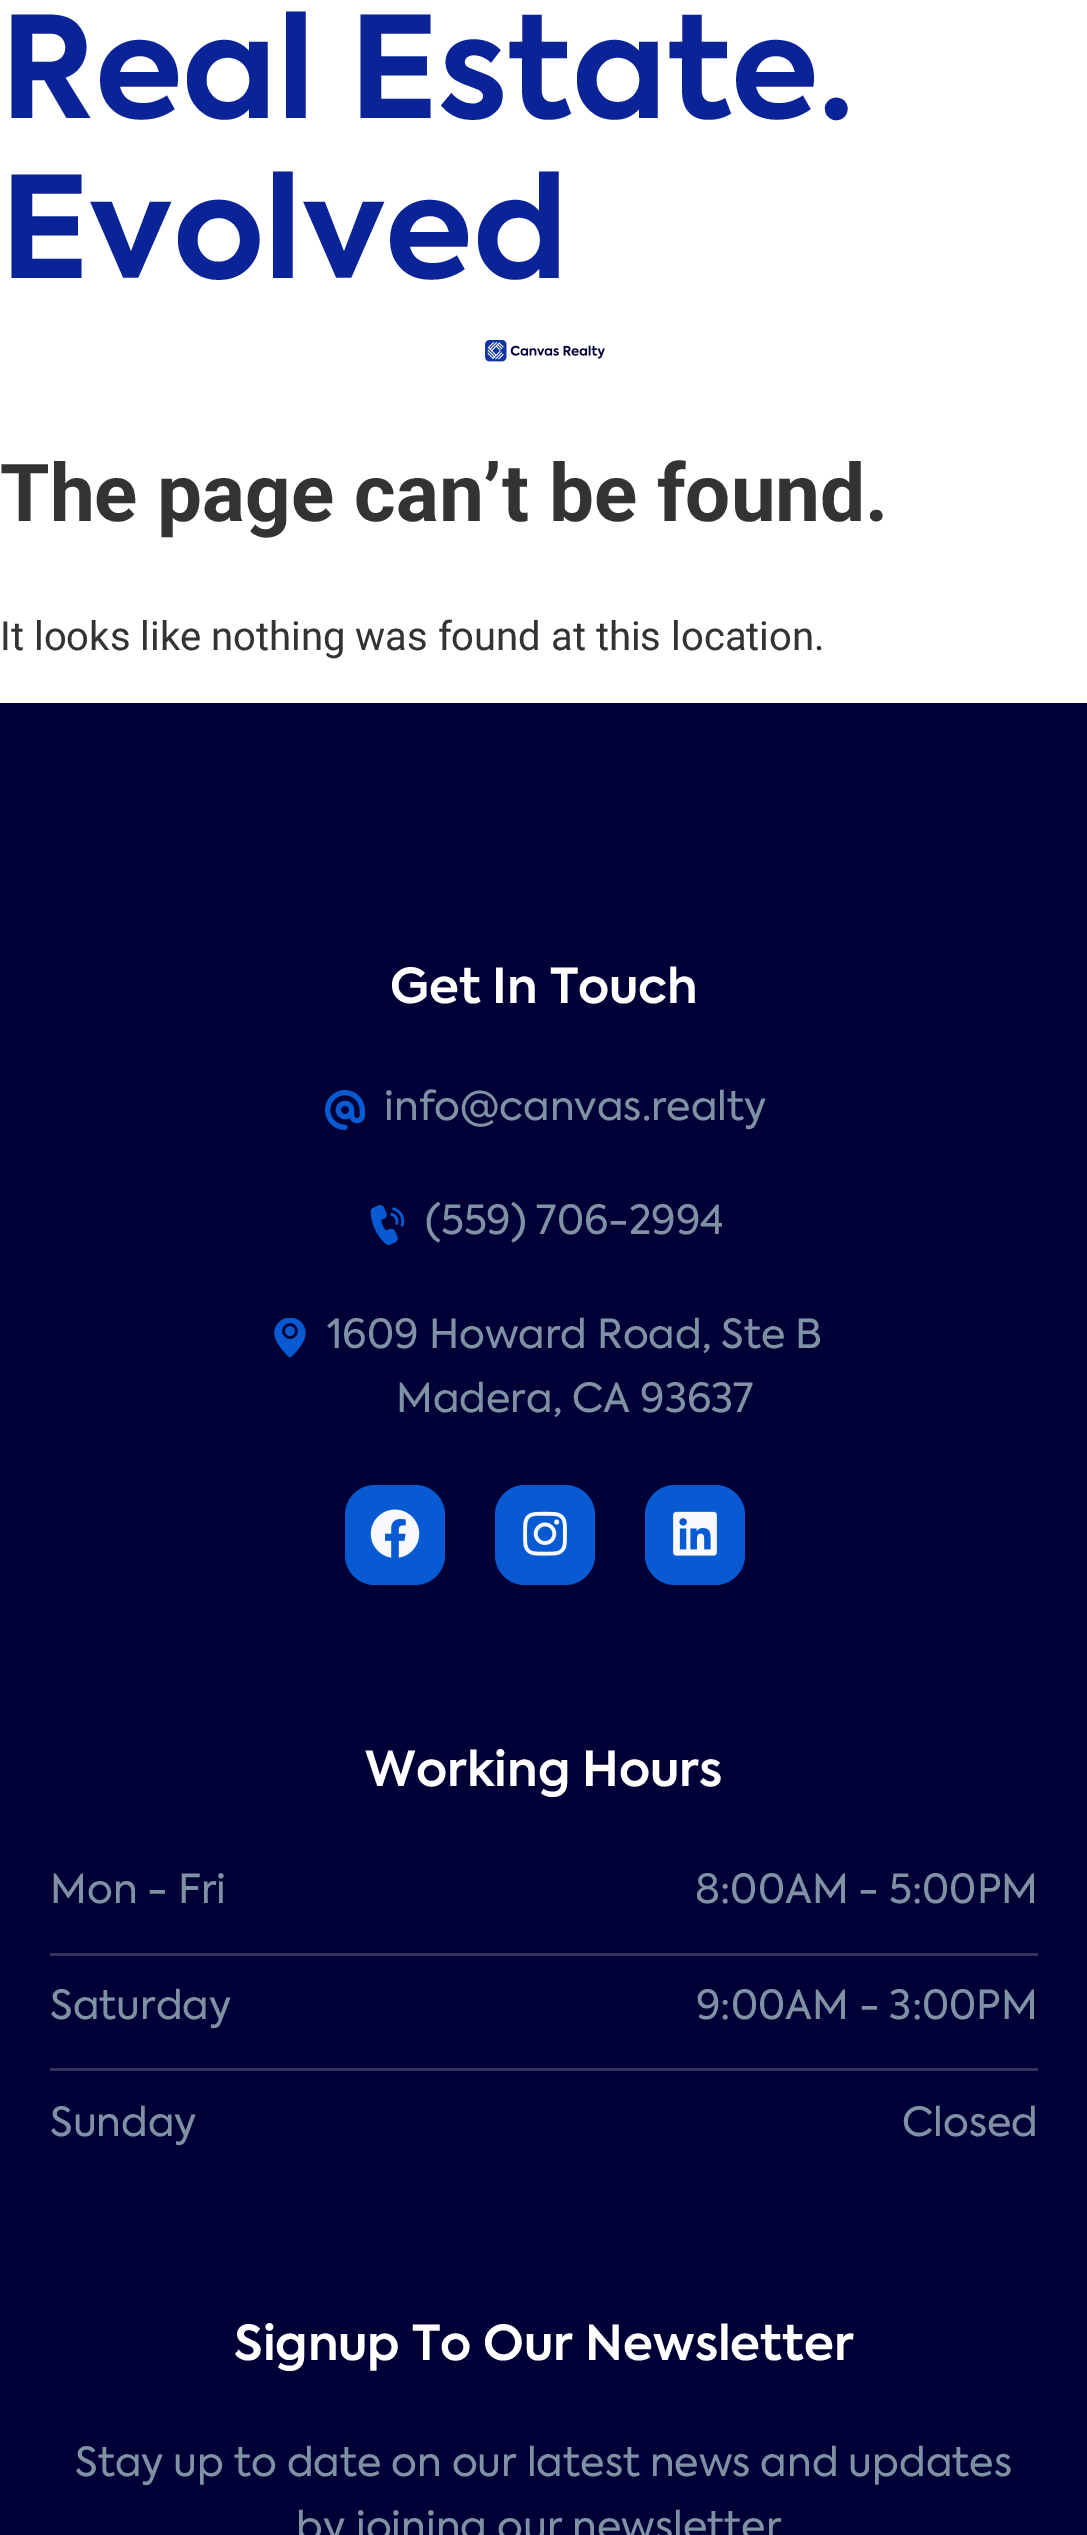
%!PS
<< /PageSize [1087 2535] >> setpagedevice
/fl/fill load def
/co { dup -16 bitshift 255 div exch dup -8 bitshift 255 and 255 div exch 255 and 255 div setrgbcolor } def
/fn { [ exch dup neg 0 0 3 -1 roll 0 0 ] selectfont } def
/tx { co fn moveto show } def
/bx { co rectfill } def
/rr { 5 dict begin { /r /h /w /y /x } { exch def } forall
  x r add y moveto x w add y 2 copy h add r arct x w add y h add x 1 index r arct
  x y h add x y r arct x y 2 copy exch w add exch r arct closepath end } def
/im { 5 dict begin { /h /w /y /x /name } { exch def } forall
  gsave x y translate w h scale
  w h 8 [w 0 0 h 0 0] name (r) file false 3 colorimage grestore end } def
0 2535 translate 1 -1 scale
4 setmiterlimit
0 0 1087 2535 16#FFFFFF bx
(media/1.raw) 485 340 120 22 im
0 703 1087 1832 16#000036 bx
(media/2.raw) 325 1090 40 40 im
(media/3.raw) 370 1205 35 40 im
(media/4.raw) 274 1318 32 40 im
16#085AD3 co
345 1485 100 100 30 rr fl
(media/5.raw) 370 1509 50 49 im
495 1485 100 100 30 rr fl
(media/6.raw) 523 1511 44 45 im
645 1485 100 100 30 rr fl
(media/7.raw) 673 1511 44 45 im
50 1953 988 3 16#33335E bx
50 2068 988 3 16#33335E bx
(Real Estate.) 0 118 /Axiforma-Bold 140 16#0A2497 tx
(Evolved) 0 278 /Axiforma-Bold 140 16#0A2497 tx
(The page can’t be found.) 0 521 /Roboto-Bold 80 16#333333 tx
(It looks like nothing was found at this location.) 0 650 /Roboto-Regular 40 16#333333 tx
(Get In Touch) 390 1003 /Axiforma-SemiBold 48 16#FFFFFF tx
(info@canvas.realty) 384 1120 /Axiforma-Regular 40 16#7E92A4 tx
(\(559\) 706-2994) 425 1234 /Axiforma-Regular 40 16#7E92A4 tx
(1609 Howard Road, Ste B) 327 1348 /Axiforma-Regular 40 16#7E92A4 tx
(Madera, CA 93637) 396 1412 /Axiforma-Regular 40 16#7E92A4 tx
(Working Hours) 365 1786 /Axiforma-SemiBold 48 16#FFFFFF tx
(Mon - Fri) 50 1903 /Axiforma-Regular 40 16#7E92A4 tx
(8:00AM - 5:00PM) 695 1903 /Axiforma-Regular 40 16#7E92A4 tx
(Saturday) 50 2019 /Axiforma-Regular 40 16#7E92A4 tx
(9:00AM - 3:00PM) 696 2019 /Axiforma-Regular 40 16#7E92A4 tx
(Sunday) 50 2136 /Axiforma-Regular 40 16#7E92A4 tx
(Closed) 902 2136 /Axiforma-Regular 40 16#7E92A4 tx
(Signup To Our Newsletter) 234 2360 /Axiforma-SemiBold 48 16#FFFFFF tx
(Stay up to date on our latest news and updates) 75 2476 /Axiforma-Regular 40 16#7E92A4 tx
(by joining our newsletter) 296 2540 /Axiforma-Regular 40 16#7E92A4 tx
showpage
